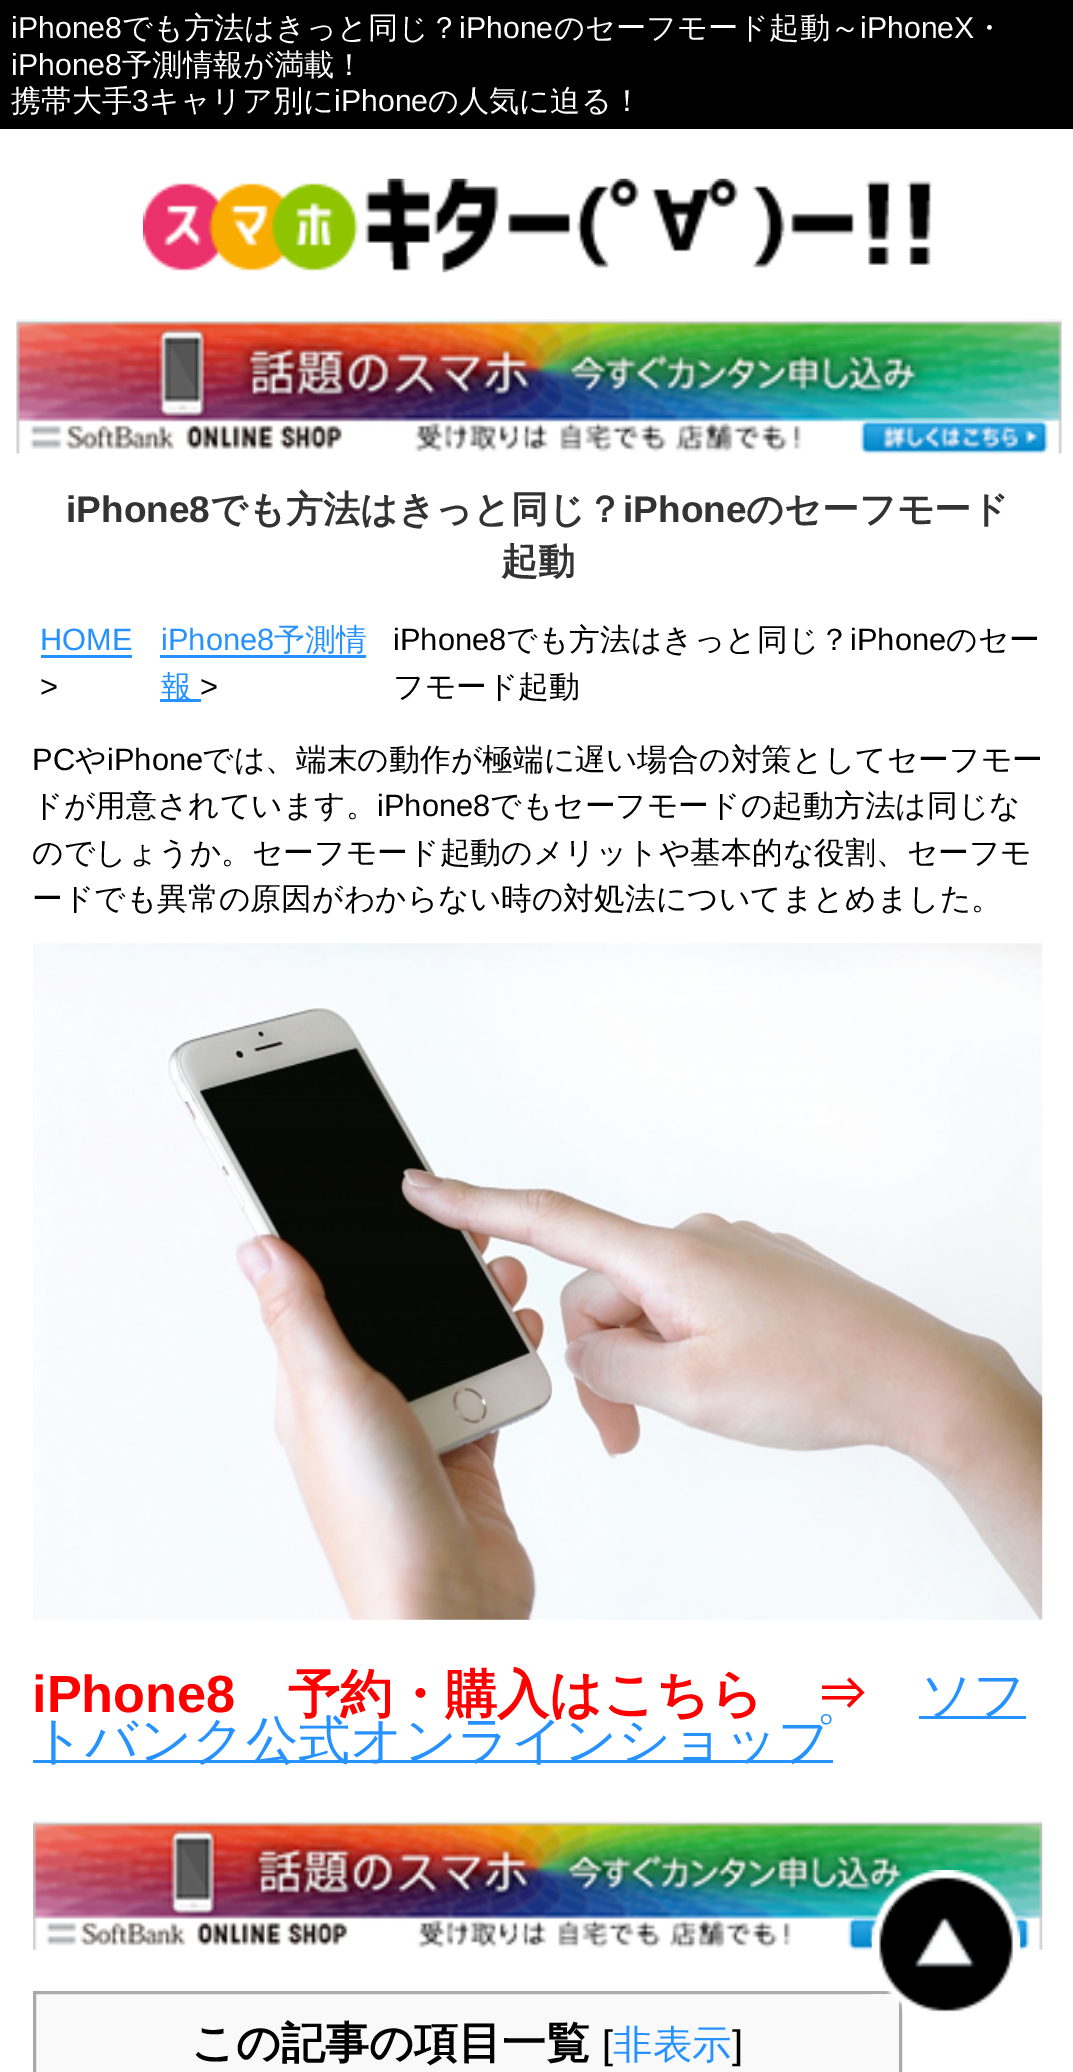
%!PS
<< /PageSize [1073 2072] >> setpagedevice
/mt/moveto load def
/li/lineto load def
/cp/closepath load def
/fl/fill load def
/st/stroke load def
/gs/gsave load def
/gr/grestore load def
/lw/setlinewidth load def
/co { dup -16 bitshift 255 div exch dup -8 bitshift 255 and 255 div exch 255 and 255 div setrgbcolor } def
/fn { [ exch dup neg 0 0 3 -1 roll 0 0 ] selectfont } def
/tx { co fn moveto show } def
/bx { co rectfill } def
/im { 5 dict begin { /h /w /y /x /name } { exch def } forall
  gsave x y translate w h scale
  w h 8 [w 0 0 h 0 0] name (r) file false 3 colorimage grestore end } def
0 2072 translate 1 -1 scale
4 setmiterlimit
0 0 1073 2072 16#FFFFFF bx
0 0 1073 129 16#000000 bx
(media/1.raw) 143 178 789 95 im
(media/2.raw) 16 319 1046 135 im
41 655 91 3 16#2692FF bx
160 655 206 3 16#2692FF bx
160 699 41 3 16#2692FF bx
(media/3.raw) 33 943 1010 677 im
919 1716 107 3 16#2692FF bx
33 1760 800 3 16#2692FF bx
(media/4.raw) 33 1820 1010 130 im
16#F9F9F9 co
34.5 1992.5 mt 900.5 1992.5 li 900.5 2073.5 li 34.5 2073.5 li cp gs fl gr
16#AAAAAA co
3 lw
st
(media/5.raw) 871 1870 150 142 im
(iPhone8) 11 38 /LiberationSans-Regular 30.25 16#FFFFFF tx
(でも方法はきっと同じ？) 122 38 /WenQuanYiZenHei-Medium 30.25 16#FFFFFF tx
(iPhone) 459 38 /LiberationSans-Regular 30.25 16#FFFFFF tx
(のセーフモード起動～) 554 38 /WenQuanYiZenHei-Medium 30.25 16#FFFFFF tx
(iPhoneX) 860 38 /LiberationSans-Regular 30.25 16#FFFFFF tx
(・) 974 38 /WenQuanYiZenHei-Medium 30.25 16#FFFFFF tx
(iPhone8) 11 75 /LiberationSans-Regular 30.25 16#FFFFFF tx
(予測情報が満載！) 122 75 /WenQuanYiZenHei-Medium 30.25 16#FFFFFF tx
(携帯大手) 11 111 /WenQuanYiZenHei-Medium 30.25 16#FFFFFF tx
(3) 132 111 /LiberationSans-Regular 30.25 16#FFFFFF tx
(キャリア別に) 149 111 /WenQuanYiZenHei-Medium 30.25 16#FFFFFF tx
(iPhone) 334 111 /LiberationSans-Regular 30.25 16#FFFFFF tx
(の人気に迫る！) 428 111 /WenQuanYiZenHei-Medium 30.25 16#FFFFFF tx
(iPhone8) 66 522 /LiberationSans-Bold 37 16#333333 tx
(でも方法はきっと同じ？) 210 522 /WenQuanYiZenHei-Bold 37 16#333333 tx
(iPhone) 623 522 /LiberationSans-Bold 37 16#333333 tx
(のセーフモード) 746 522 /WenQuanYiZenHei-Bold 37 16#333333 tx
(起動) 501 574 /WenQuanYiZenHei-Bold 37 16#333333 tx
(HOME) 40 650 /LiberationSans-Regular 30.8 16#2692FF tx
(>) 40 697 /LiberationSans-Regular 30.8 16#000000 tx
(iPhone8) 161 650 /LiberationSans-Regular 30.8 16#2692FF tx
(予測情) 274 650 /WenQuanYiZenHei-Medium 30.8 16#2692FF tx
(報) 161 697 /WenQuanYiZenHei-Medium 30.8 16#2692FF tx
(>) 200 697 /LiberationSans-Regular 30.8 16#000000 tx
(iPhone8) 393 650 /LiberationSans-Regular 30.8 16#000000 tx
(でも方法はきっと同じ？) 506 650 /WenQuanYiZenHei-Medium 30.8 16#000000 tx
(iPhone) 850 650 /LiberationSans-Regular 30.8 16#000000 tx
(のセー) 946 650 /WenQuanYiZenHei-Medium 30.8 16#000000 tx
(フモード起動) 393 697 /WenQuanYiZenHei-Medium 30.8 16#000000 tx
(PC) 32 770 /LiberationSans-Regular 30.8 16#000000 tx
(や) 75 770 /WenQuanYiZenHei-Medium 30.8 16#000000 tx
(iPhone) 107 770 /LiberationSans-Regular 30.8 16#000000 tx
(では、端末の動作が極端に遅い場合の対策としてセーフモー) 202 770 /WenQuanYiZenHei-Medium 30.8 16#000000 tx
(ドが用意されています。) 32 816 /WenQuanYiZenHei-Medium 30.8 16#000000 tx
(iPhone8) 377 816 /LiberationSans-Regular 30.8 16#000000 tx
(でもセーフモードの起動方法は同じな) 490 816 /WenQuanYiZenHei-Medium 30.8 16#000000 tx
(のでしょうか。セーフモード起動のメリットや基本的な役割、セーフモ) 32 863 /WenQuanYiZenHei-Medium 30.8 16#000000 tx
(ードでも異常の原因がわからない時の対処法についてまとめました。) 32 909 /WenQuanYiZenHei-Medium 30.8 16#000000 tx
(iPhone8) 32 1712 /LiberationSans-Bold 52.25 16#FF0000 tx
(予約・購入はこちら　⇒) 288 1712 /WenQuanYiZenHei-Bold 52.25 16#FF0000 tx
(ソフ) 920 1712 /WenQuanYiZenHei-Medium 52.25 16#2692FF tx
(トバンク公式オンラインショップ) 32 1758 /WenQuanYiZenHei-Medium 52.25 16#2692FF tx
(この記事の項目一覧) 191 2058 /WenQuanYiZenHei-Bold 44 16#000000 tx
([) 602 2058 /LiberationSans-Regular 39.5 16#000000 tx
(非表示) 613 2058 /WenQuanYiZenHei-Medium 39.5 16#2692FF tx
(]) 732 2058 /LiberationSans-Regular 39.5 16#000000 tx
showpage
